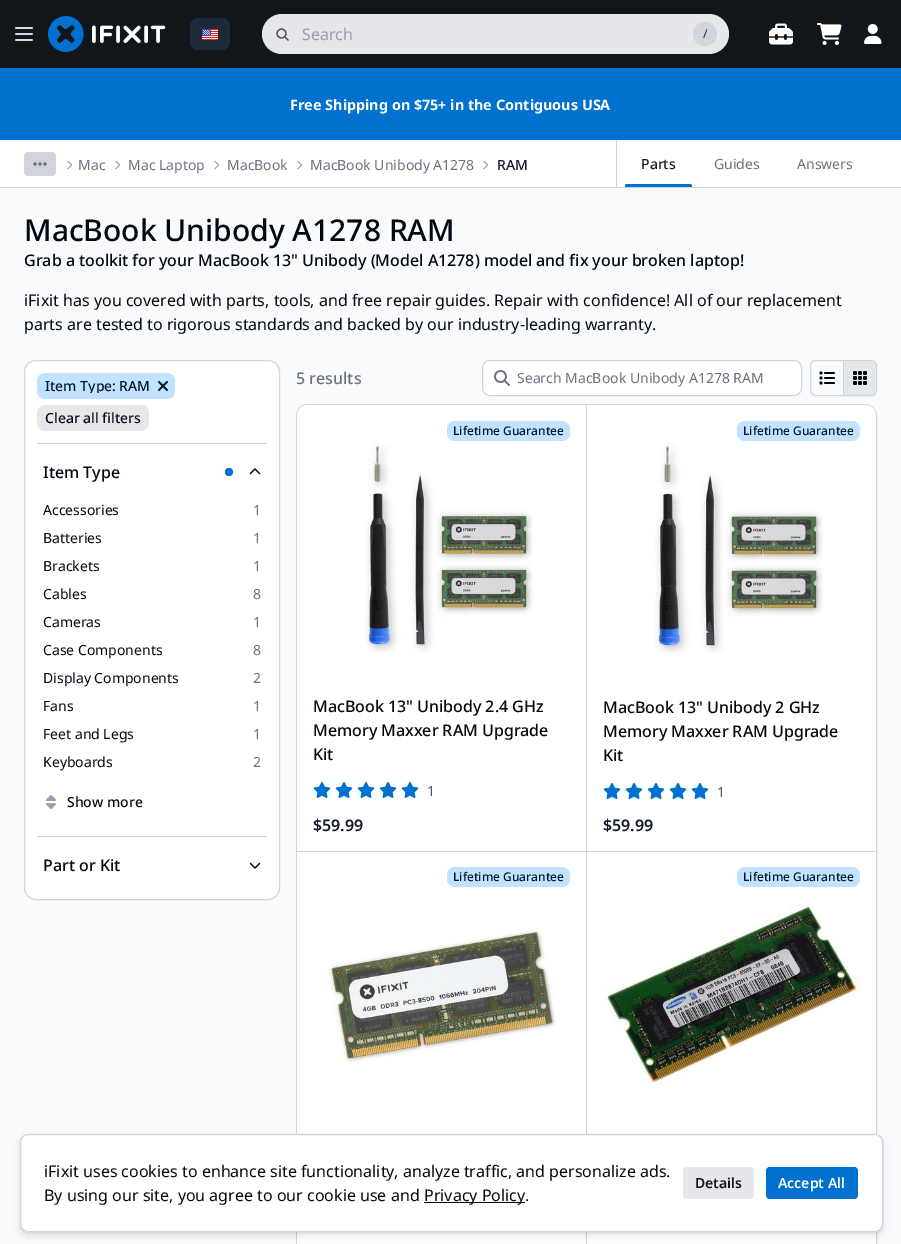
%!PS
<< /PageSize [901 1244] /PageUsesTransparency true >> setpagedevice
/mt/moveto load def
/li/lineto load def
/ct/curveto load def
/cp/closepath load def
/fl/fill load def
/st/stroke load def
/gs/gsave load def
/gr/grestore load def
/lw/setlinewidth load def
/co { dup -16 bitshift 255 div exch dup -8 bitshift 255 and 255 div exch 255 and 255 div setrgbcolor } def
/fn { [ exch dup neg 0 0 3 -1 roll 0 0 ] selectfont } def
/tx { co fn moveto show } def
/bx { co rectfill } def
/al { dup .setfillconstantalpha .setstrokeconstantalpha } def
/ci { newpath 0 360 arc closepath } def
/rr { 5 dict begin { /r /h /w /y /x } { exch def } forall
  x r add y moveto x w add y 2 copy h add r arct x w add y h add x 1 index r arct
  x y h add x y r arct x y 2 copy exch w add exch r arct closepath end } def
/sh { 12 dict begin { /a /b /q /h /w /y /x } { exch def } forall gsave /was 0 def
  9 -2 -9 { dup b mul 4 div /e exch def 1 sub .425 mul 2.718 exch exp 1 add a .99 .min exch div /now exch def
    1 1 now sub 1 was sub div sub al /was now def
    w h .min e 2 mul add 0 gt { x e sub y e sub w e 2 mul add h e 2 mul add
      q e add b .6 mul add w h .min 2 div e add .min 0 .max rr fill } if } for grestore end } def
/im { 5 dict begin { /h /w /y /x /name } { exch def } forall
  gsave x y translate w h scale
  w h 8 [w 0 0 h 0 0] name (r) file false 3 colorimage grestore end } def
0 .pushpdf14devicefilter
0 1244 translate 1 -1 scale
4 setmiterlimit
0 0 901 1244 16#F9FAFB bx
0 0 901 68 16#11161A bx
(media/1.raw) 15 27 18 14 im
(media/2.raw) 48 16 118 36 im
16#1E2939 co
190 18 40 32 8 rr fl
(media/3.raw) 202 29 16 11 im
16#E5E7EB co
262 14 467 40 20 rr fl
16#4A5565 co
1.3 lw
281.5 33.5 4.5 ci st
1 setlinecap
285 37 mt 288 40 li st
16#D1D5DC co
705 34 12 ci fl
(media/4.raw) 769 23 24 22 im
(media/5.raw) 817 23 25 22 im
(media/6.raw) 864 24 18 20 im
0 68 901 72 16#0071CE bx
0 140 901 47 16#FFFFFF bx
0 187 901 1 16#D1D5DB bx
24 152 32 24 4 rr fl
(media/7.raw) 33 162 14 4 im
(media/8.raw) 67 160 6 10 im
(media/8.raw) 115 160 6 10 im
(media/8.raw) 214 160 6 10 im
(media/8.raw) 297 160 6 10 im
(media/8.raw) 483 160 6 10 im
616 140 1 47 16#D1D5DB bx
16#0071CE co
627 184 mt 690 184 li 691 184 692 185 692 186 ct 692 187 li 625 187 li 625 186 li 625 185 626 184 627 184 ct cp fl
16#FFFFFF co
24.5 360.5 255 539 11.5 rr gs fl gr
16#D1D5DC co
1 lw
0 setlinecap
st
37 443 230 1 16#D1D5DC bx
16#C2E3FF co
37 373 138 26 8 rr fl
(media/9.raw) 158 381 10 10 im
16#E5E7EB co
37 405 112 26 8 rr fl
37 836 230 1 16#D1D5DC bx
16#0071CE co
229 472 4 ci fl
(media/10.raw) 249 468 12 7 im
(media/11.raw) 46 795 10 14 im
(media/12.raw) 249 862 12 7 im
16#FFFFFF co
482.5 360.5 319 35 7.5 rr gs fl gr
16#D1D5DC co
st
(media/13.raw) 494 370 16 16 im
816 360.5 mt 843.5 360.5 li 843.5 395.5 li 816 395.5 li 813 395.5 810.5 393 810.5 390 ct 810.5 366 li 810.5 363 813 360.5 816 360.5 ct cp st
(media/14.raw) 819 371 16 14 im
16#000000 co
844 361 33 36 6 1 .05 sh
16#E5E7EB co
844 361 mt 871 361 li 874 361 876 363 876 366 ct 876 390 li 876 393 874 395 871 395 ct 844 395 li cp fl
16#D1D5DC co
844 360 mt 871 360 li 874.5 360 877 362.5 877 366 ct 877 390 li 877 393.5 874.5 396 871 396 ct 844 396 li cp 844 361 mt 871 361 li 874 361 876 363 876 366 ct 876 390 li 876 393 874 395 871 395 ct 844 395 li cp eofill
(media/15.raw) 853 371 14 14 im
296.5 404.5 580 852 11.5 rr st
16#FFFFFF co
297 405 579 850 11 rr fl
586 405 1 839 16#D1D5DC bx
16#C2E3FF co
447 421 123 20 8 rr fl
(media/16.raw) 364 442 169 211 im
(media/17.raw) 313 782 18 16 im
(media/17.raw) 335 782 18 16 im
(media/17.raw) 357 782 18 16 im
(media/17.raw) 379 782 18 16 im
(media/17.raw) 401 782 18 16 im
737 421 123 20 8 rr fl
(media/18.raw) 654 442 169 212 im
(media/17.raw) 603 783 18 16 im
(media/17.raw) 625 783 18 16 im
(media/17.raw) 647 783 18 16 im
(media/17.raw) 669 783 18 16 im
(media/17.raw) 691 783 18 16 im
297 851 579 1 16#D1D5DC bx
16#C2E3FF co
447 867 123 20 8 rr fl
(media/19.raw) 323 928 237 134 im
737 867 123 20 8 rr fl
(media/20.raw) 603 904 257 183 im
16#11161A co
20 1138 863 98 8 4 .1 sh
20 1135 863 98 8 1 .1 sh
16#FFFFFF co
20.5 1134.5 862 97 7.5 rr gs fl gr
16#D1D5DB co
st
424 1202 101 1 16#030712 bx
16#E5E7EB co
683 1167 71 32 4 rr fl
16#0071CE co
766 1167 92 32 4 rr fl
(Search) 302 40 /NotoSans-Regular 16 16#989EA8 tx
(/) 703 38 /NotoSans-Regular 12 16#1E2939 tx
(Free Shipping on $75+ in the Contiguous USA) 290 110 /NotoSans-Bold 14.4 16#FFFFFF tx
(Mac) 78 170 /NotoSans-Regular 14 16#6A7282 tx
(Mac Laptop) 128 170 /NotoSans-Regular 14 16#6A7282 tx
(MacBook) 227 170 /NotoSans-Regular 14 16#6A7282 tx
(MacBook Unibody A1278) 310 170 /NotoSans-Regular 14 16#6A7282 tx
(RAM) 497 170 /NotoSans-Medium 14 16#111827 tx
(Parts) 641 169 /NotoSans-Medium 14 16#111827 tx
(Guides) 714 169 /NotoSans-Regular 14 16#6A7282 tx
(Answers) 797 169 /NotoSans-Regular 14 16#6A7282 tx
(MacBook Unibody A1278 RAM) 24 241 /NotoSans-Medium 30 16#030712 tx
(Grab a toolkit for your MacBook 13" Unibody \(Model A1278\) model and fix your broken laptop!) 24 266 /NotoSans-Medium 16 16#030712 tx
(iFixit has you covered with parts, tools, and free repair guides. Repair with confidence! All of our replacement) 24 306 /NotoSans-Regular 16 16#030712 tx
(parts are tested to rigorous standards and backed by our industry-leading warranty.) 24 330 /NotoSans-Regular 16 16#030712 tx
gs
45 379 106 14 rectclip
(Item Type) 45 391 /NotoSans-Medium 14 16#001629 tx
gr
(: RAM) 112 391 /NotoSans-Medium 14 16#001629 tx
(Clear all filters) 45 423 /NotoSans-Medium 14 16#030712 tx
(Item Type) 43 478 /NotoSans-Medium 16 16#030712 tx
(Accessories) 43 515 /NotoSans-Regular 14 16#030712 tx
(1) 253 515 /NotoSans-Regular 14 16#6A7282 tx
(Batteries) 43 543 /NotoSans-Regular 14 16#030712 tx
(1) 253 543 /NotoSans-Regular 14 16#6A7282 tx
(Brackets) 43 571 /NotoSans-Regular 14 16#030712 tx
(1) 253 571 /NotoSans-Regular 14 16#6A7282 tx
(Cables) 43 599 /NotoSans-Regular 14 16#030712 tx
(8) 253 599 /NotoSans-Regular 14 16#6A7282 tx
(Cameras) 43 627 /NotoSans-Regular 14 16#030712 tx
(1) 253 627 /NotoSans-Regular 14 16#6A7282 tx
(Case Components) 43 655 /NotoSans-Regular 14 16#030712 tx
(8) 253 655 /NotoSans-Regular 14 16#6A7282 tx
(Display Components) 43 683 /NotoSans-Regular 14 16#030712 tx
(2) 253 683 /NotoSans-Regular 14 16#6A7282 tx
(Fans) 43 711 /NotoSans-Regular 14 16#030712 tx
(1) 253 711 /NotoSans-Regular 14 16#6A7282 tx
(Feet and Legs) 43 739 /NotoSans-Regular 14 16#030712 tx
(1) 253 739 /NotoSans-Regular 14 16#6A7282 tx
(Keyboards) 43 767 /NotoSans-Regular 14 16#030712 tx
(2) 253 767 /NotoSans-Regular 14 16#6A7282 tx
(Show more) 67 807 /NotoSans-Medium 14 16#030712 tx
(Part or Kit) 43 871 /NotoSans-Medium 16 16#030712 tx
(5 results) 296 384 /NotoSans-Medium 16 16#6A7282 tx
(Search MacBook Unibody A1278 RAM) 517 383 /NotoSans-Regular 14 16#6A7282 tx
(Lifetime Guarantee) 453 435 /NotoSans-Medium 12 16#001629 tx
(MacBook 13" Unibody 2.4 GHz) 313 712 /NotoSans-Medium 16 16#030712 tx
(Memory Maxxer RAM Upgrade) 313 736 /NotoSans-Medium 16 16#030712 tx
(Kit) 313 760 /NotoSans-Medium 16 16#030712 tx
(1) 427 796 /NotoSans-Regular 14 16#4A5565 tx
($59.99) 313 831 /NotoSans-SemiBold 16 16#111827 tx
(Lifetime Guarantee) 743 435 /NotoSans-Medium 12 16#001629 tx
(MacBook 13" Unibody 2 GHz) 603 713 /NotoSans-Medium 16 16#030712 tx
(Memory Maxxer RAM Upgrade) 603 737 /NotoSans-Medium 16 16#030712 tx
(Kit) 603 761 /NotoSans-Medium 16 16#030712 tx
(1) 717 797 /NotoSans-Regular 14 16#4A5565 tx
($59.99) 603 831 /NotoSans-SemiBold 16 16#111827 tx
(Lifetime Guarantee) 453 881 /NotoSans-Medium 12 16#001629 tx
(Lifetime Guarantee) 743 881 /NotoSans-Medium 12 16#001629 tx
(iFixit uses cookies to enhance site functionality, analyze traffic, and personalize ads.) 44 1177 /NotoSans-Regular 16 16#030712 tx
(By using our site, you agree to our cookie use and) 44 1201 /NotoSans-Regular 16 16#030712 tx
(Privacy Policy.) 424 1201 /NotoSans-Regular 16 16#030712 tx
(Details) 695 1188 /NotoSans-SemiBold 14 16#11161A tx
(Accept All) 778 1188 /NotoSans-SemiBold 14 16#FFFFFF tx
.poppdf14devicefilter showpage
